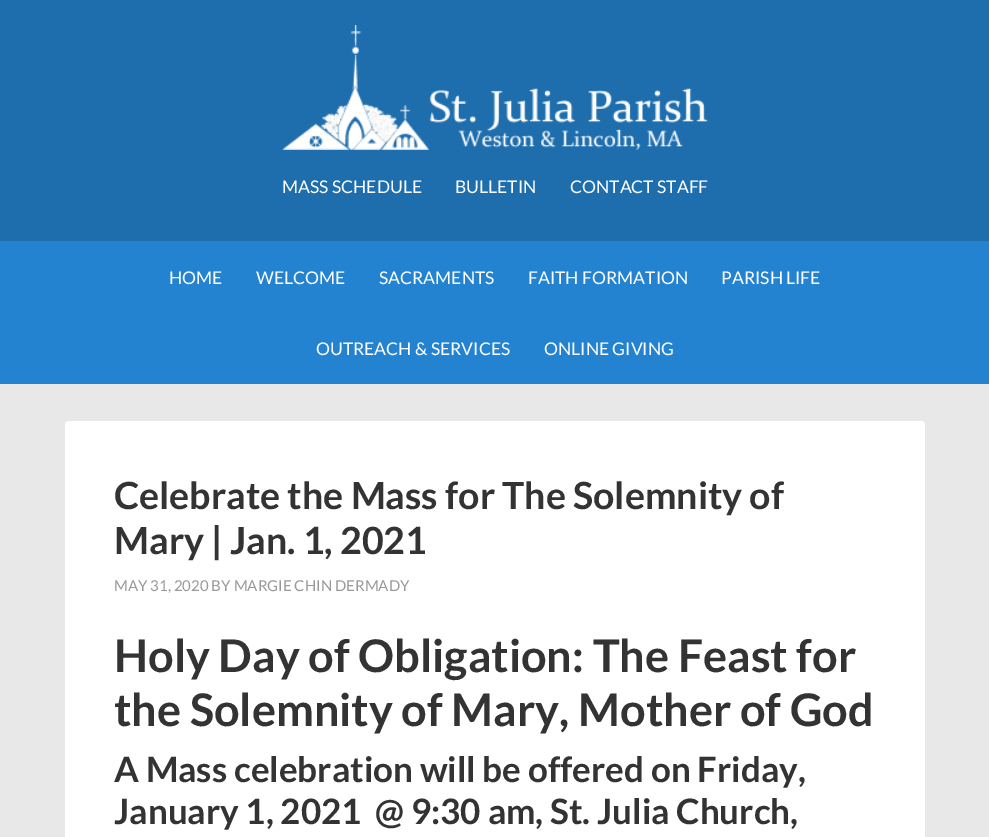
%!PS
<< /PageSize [989 837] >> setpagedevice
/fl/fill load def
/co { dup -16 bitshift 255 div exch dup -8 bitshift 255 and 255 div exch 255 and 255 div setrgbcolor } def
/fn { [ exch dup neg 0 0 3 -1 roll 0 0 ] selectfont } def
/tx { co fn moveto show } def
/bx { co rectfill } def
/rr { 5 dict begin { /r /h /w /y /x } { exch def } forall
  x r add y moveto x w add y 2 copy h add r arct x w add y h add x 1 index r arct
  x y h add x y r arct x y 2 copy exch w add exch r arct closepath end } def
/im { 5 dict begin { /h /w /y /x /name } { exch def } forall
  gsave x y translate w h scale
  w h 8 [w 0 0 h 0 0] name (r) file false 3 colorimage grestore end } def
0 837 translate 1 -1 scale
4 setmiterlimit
0 0 989 837 16#E8E8E8 bx
0 0 989 241 16#1E6DAD bx
(media/1.raw) 282 25 426 125 im
0 241 989 143 16#2483D0 bx
16#FFFFFF co
65 421 860 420 4 rr fl
(MASS SCHEDULE) 282 193 /Lato-Regular 17.5 16#FFFFFF tx
(BULLETIN) 455 193 /Lato-Regular 17.5 16#FFFFFF tx
(CONTACT STAFF) 570 193 /Lato-Regular 17.5 16#FFFFFF tx
(HOME) 169 284 /Lato-Regular 17.5 16#FFFFFF tx
(WELCOME) 256 284 /Lato-Regular 17.5 16#FFFFFF tx
(SACRAMENTS) 379 284 /Lato-Regular 17.5 16#FFFFFF tx
(FAITH FORMATION) 528 284 /Lato-Regular 17.5 16#FFFFFF tx
(PARISH LIFE) 721 284 /Lato-Regular 17.5 16#FFFFFF tx
(OUTREACH & SERVICES) 316 355 /Lato-Regular 17.5 16#FFFFFF tx
(ONLINE GIVING) 544 355 /Lato-Regular 17.5 16#FFFFFF tx
(Celebrate the Mass for The Solemnity of) 114 509 /Lato-Bold 37.5 16#333333 tx
(Mary | Jan. 1, 2021) 114 554 /Lato-Bold 37.5 16#333333 tx
(MAY 31, 2020 BY MARGIE CHIN DERMADY) 114 591 /Lato-Regular 15 16#999999 tx
(Holy Day of Obligation: The Feast for) 114 672 /Lato-Bold 45 16#333333 tx
(the Solemnity of Mary, Mother of God) 114 726 /Lato-Bold 45 16#333333 tx
(A Mass celebration will be offered on Friday,) 114 782 /Lato-Bold 35 16#333333 tx
(January 1, 2021  @ 9:30 am, St. Julia Church,) 114 824 /Lato-Bold 35 16#333333 tx
showpage
